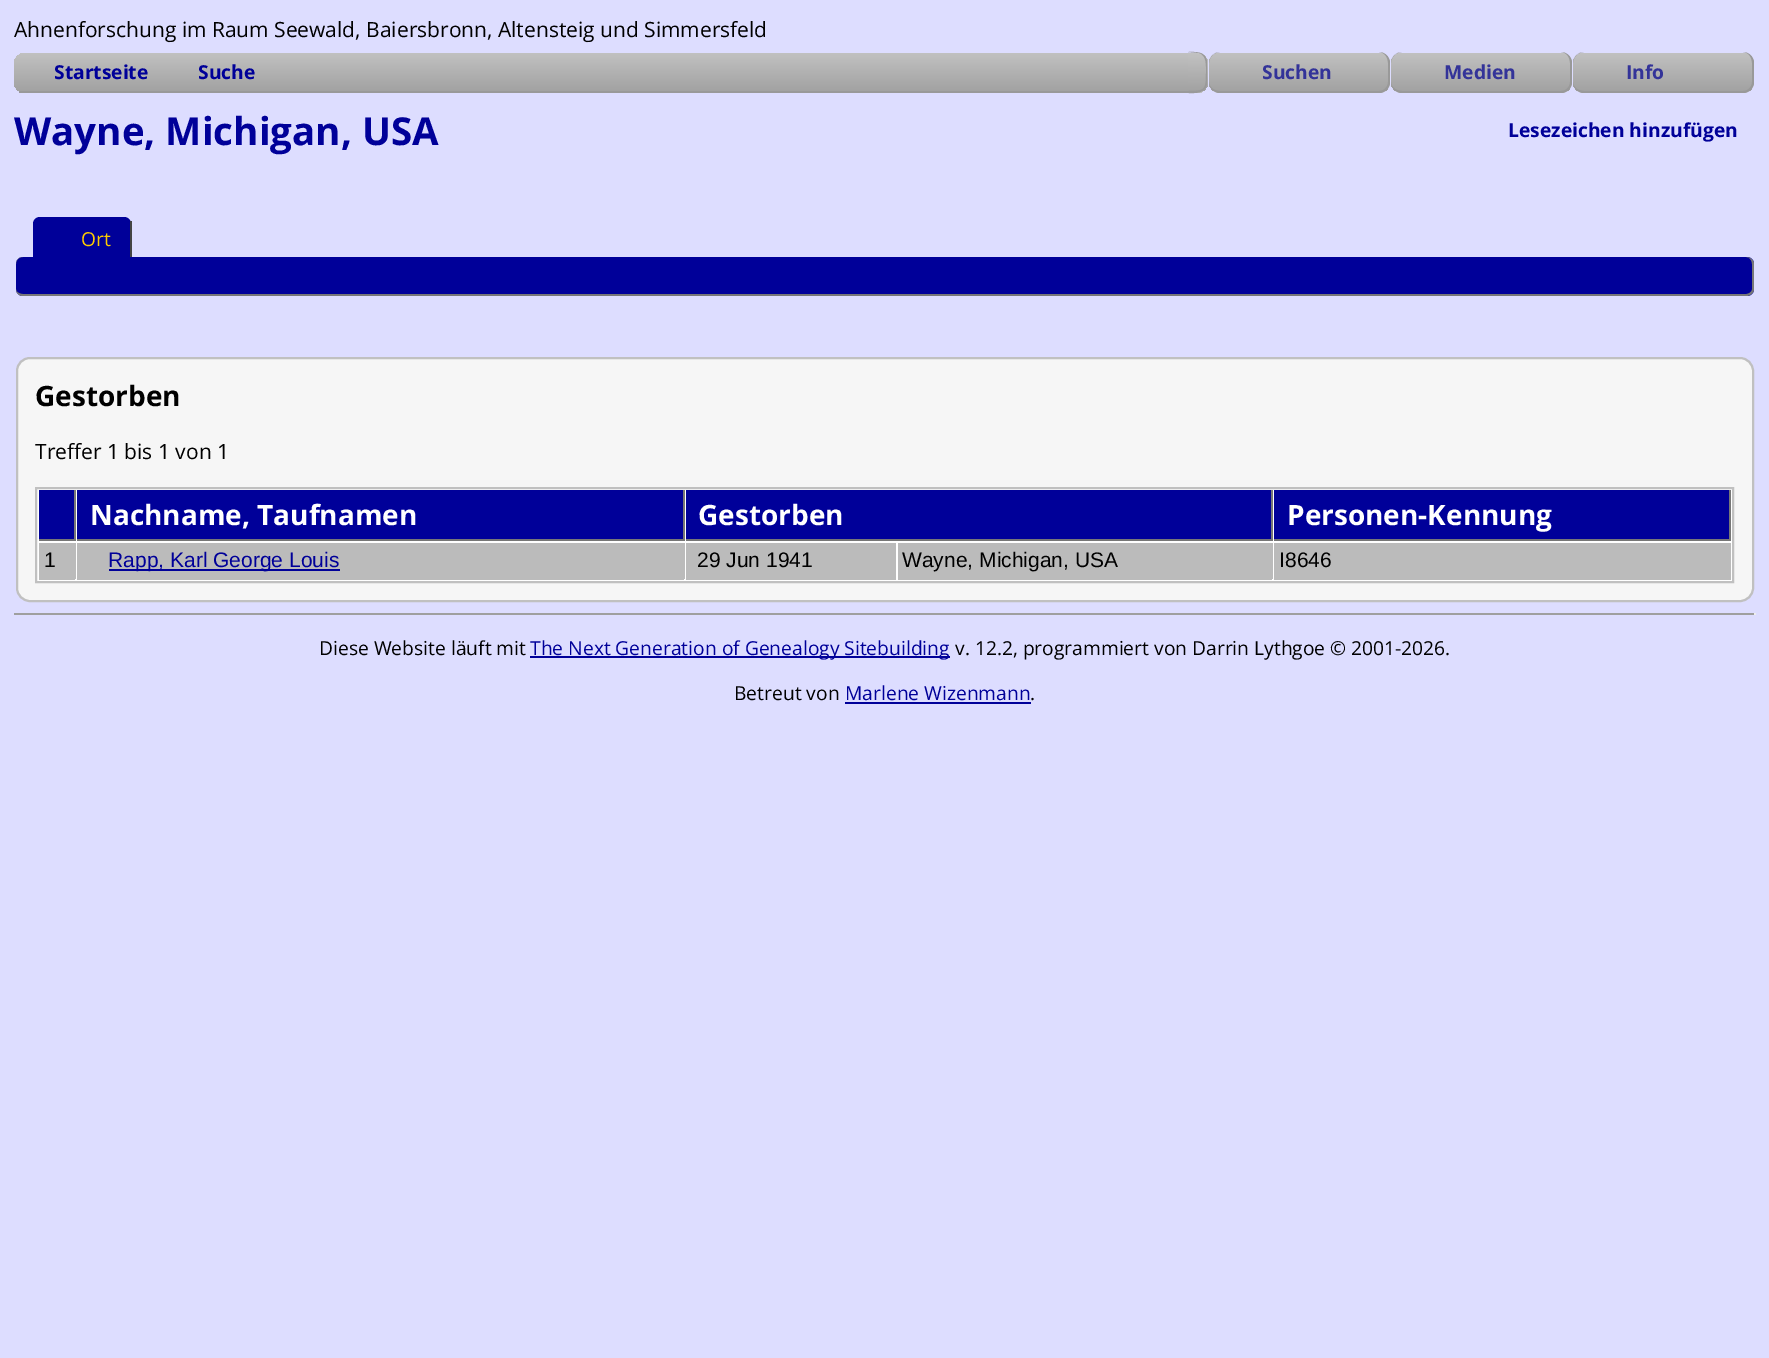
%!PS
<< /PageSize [1769 1358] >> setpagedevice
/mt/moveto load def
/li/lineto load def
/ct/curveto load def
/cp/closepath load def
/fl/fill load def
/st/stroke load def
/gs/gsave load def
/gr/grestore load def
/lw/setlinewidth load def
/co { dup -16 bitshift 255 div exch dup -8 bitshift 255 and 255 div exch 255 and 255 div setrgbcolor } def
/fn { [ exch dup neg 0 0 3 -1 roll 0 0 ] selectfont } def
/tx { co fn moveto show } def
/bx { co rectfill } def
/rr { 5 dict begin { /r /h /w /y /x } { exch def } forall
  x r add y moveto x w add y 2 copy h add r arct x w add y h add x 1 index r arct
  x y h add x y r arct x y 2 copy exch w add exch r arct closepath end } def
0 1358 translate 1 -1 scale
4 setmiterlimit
0 0 1769 1358 16#DDDDFF bx
16#BBBBBB co
14 53 1741 40 11 rr fl
gs
14 53 1741 40 11 rr clip newpath
gs 25 53 mt 1744 53 li 1750 53 1755 58 1755 64 ct 1755 91 li 14 91 li 14 64 li 14 58 19 53 25 53 ct cp clip newpath
<< /ShadingType 2 /ColorSpace /DeviceRGB /Coords [885 52 885 91] /Extend [true true] /Function << /FunctionType 2 /Domain [0 1] /C0 [.761 .761 .761] /C1 [.635 .635 .635] /N 1 >> >> shfill gr
gr
19 91 1169 2 16#999999 bx
1197 53 558 40 16#DDDDFF bx
gs
1188 53 mt 1197 53 li 1203 53 1208 58 1208 64 ct 1208 82 li 1208 88 1203 93 1197 93 ct 1188 93 li cp clip newpath
gs 1188 53 mt 1208 53 li 1208 91 li 1188 91 li cp clip newpath
<< /ShadingType 2 /ColorSpace /DeviceRGB /Coords [1197 53 1197 91] /Extend [true true] /Function << /FunctionType 2 /Domain [0 1] /C0 [.761 .761 .761] /C1 [.635 .635 .635] /N 1 >> >> shfill gr
gs 1188 91 mt 1208 91 li 1208 93 li 1188 93 li cp clip newpath
<< /ShadingType 2 /ColorSpace /DeviceRGB /Coords [1197 91 1197 130] /Extend [true true] /Function << /FunctionType 2 /Domain [0 1] /C0 [.761 .761 .761] /C1 [.635 .635 .635] /N 1 >> >> shfill gr
gr
16#999999 co
1188 52 mt 1196 52 1205 51 1207 61 ct 1207 84 li 1205 94 1196 93 1188 93 ct cp 1188 52 mt 1199 53 li 1207 55 1206 66 1206 73 ct 1206 90 1205 91 1188 91 ct cp eofill
16#BBBBBB co
1209 53 181 40 11 rr fl
gs
1209 53 181 40 11 rr clip newpath
gs 1220 53 mt 1388 53 li 1388 91 li 1209 91 li 1209 64 li 1209 58 1214 53 1220 53 ct cp clip newpath
<< /ShadingType 2 /ColorSpace /DeviceRGB /Coords [1299 52 1299 91] /Extend [true true] /Function << /FunctionType 2 /Domain [0 1] /C0 [.761 .761 .761] /C1 [.635 .635 .635] /N 1 >> >> shfill gr
gr
16#999999 co
1220 52 mt 1379 52 li 1385 52 1390 57 1390 63 ct 1390 82 li 1390 88 1385 93 1379 93 ct 1220 93 li 1214 93 1209 88 1209 82 ct 1209 63 li 1209 57 1214 52 1220 52 ct cp 1220 52 mt 1379 52 li 1384 52 1388 57 1388 63 ct 1388 82 li 1388 87 1384 91 1379 91 ct 1220 91 li 1214 91 1209 87 1209 82 ct 1209 63 li 1209 57 1214 52 1220 52 ct cp eofill
16#BBBBBB co
1391 53 181 40 11 rr fl
gs
1391 53 181 40 11 rr clip newpath
gs 1402 53 mt 1570 53 li 1570 91 li 1391 91 li 1391 64 li 1391 58 1396 53 1402 53 ct cp clip newpath
<< /ShadingType 2 /ColorSpace /DeviceRGB /Coords [1481 52 1481 91] /Extend [true true] /Function << /FunctionType 2 /Domain [0 1] /C0 [.761 .761 .761] /C1 [.635 .635 .635] /N 1 >> >> shfill gr
gr
16#999999 co
1402 52 mt 1561 52 li 1567 52 1572 57 1572 63 ct 1572 82 li 1572 88 1567 93 1561 93 ct 1402 93 li 1396 93 1391 88 1391 82 ct 1391 63 li 1391 57 1396 52 1402 52 ct cp 1402 52 mt 1561 52 li 1566 52 1570 57 1570 63 ct 1570 82 li 1570 87 1566 91 1561 91 ct 1402 91 li 1396 91 1391 87 1391 82 ct 1391 63 li 1391 57 1396 52 1402 52 ct cp eofill
16#BBBBBB co
1573 53 181 40 11 rr fl
gs
1573 53 181 40 11 rr clip newpath
gs 1584 53 mt 1752 53 li 1752 91 li 1573 91 li 1573 64 li 1573 58 1578 53 1584 53 ct cp clip newpath
<< /ShadingType 2 /ColorSpace /DeviceRGB /Coords [1663 52 1663 91] /Extend [true true] /Function << /FunctionType 2 /Domain [0 1] /C0 [.761 .761 .761] /C1 [.635 .635 .635] /N 1 >> >> shfill gr
gr
16#999999 co
1584 52 mt 1743 52 li 1749 52 1754 57 1754 63 ct 1754 82 li 1754 88 1749 93 1743 93 ct 1584 93 li 1578 93 1573 88 1573 82 ct 1573 63 li 1573 57 1578 52 1584 52 ct cp 1584 52 mt 1743 52 li 1748 52 1752 57 1752 63 ct 1752 82 li 1752 87 1748 91 1743 91 ct 1584 91 li 1578 91 1573 87 1573 82 ct 1573 63 li 1573 57 1578 52 1584 52 ct cp eofill
16#000099 co
40 217 mt 124 217 li 128 217 131 220 131 224 ct 131 257 li 33 257 li 33 224 li 33 220 36 217 40 217 ct cp fl
130 221 2 36 16#444444 bx
16#000099 co
16 257 1738 39 7 rr fl
16#777777 co
23 257 mt 1746 257 li 1750 257 1754 260 1754 264 ct 1754 289 li 1754 293 1750 296 1746 296 ct 23 296 li 19 296 16 293 16 289 ct 16 264 li 16 260 19 257 23 257 ct cp 23 257 mt 1746 257 li 1749 257 1752 260 1752 264 ct 1752 289 li 1752 292 1749 294 1746 294 ct 23 294 li 19 294 16 292 16 289 ct 16 264 li 16 260 19 257 23 257 ct cp eofill
16#F6F6F6 co
17 358 1736 243 13 rr gs fl gr
16#C0C0C0 co
2 lw
st
16#FFFFFF co
36 488 mt 1733 488 li 1733 582 li 36 582 li cp gs fl gr
16#C0C0C0 co
st
39 490 35 49 16#000099 bx
74 490 2 51 16#777777 bx
39 539 36 2 16#777777 bx
77 490 606 49 16#000099 bx
683 490 2 51 16#777777 bx
77 539 607 2 16#777777 bx
686 490 585 49 16#000099 bx
1271 490 2 51 16#777777 bx
686 539 586 2 16#777777 bx
1274 490 455 49 16#000099 bx
1729 490 2 51 16#777777 bx
1274 539 457 2 16#777777 bx
39 543 35 35 16#BBBBBB bx
74 543 2 36 16#BBBBBB bx
39 578 36 2 16#BBBBBB bx
77 543 606 35 16#BBBBBB bx
683 543 2 36 16#BBBBBB bx
77 578 607 2 16#BBBBBB bx
109 569 231 2 16#000099 bx
686 543 210 37 16#BBBBBB bx
898 543 373 35 16#BBBBBB bx
1271 543 2 36 16#BBBBBB bx
898 578 374 2 16#BBBBBB bx
1274 543 457 37 16#BBBBBB bx
14 613 1741 2 16#9F9F9F bx
1754 613 2 2 16#EEEEEE bx
530 656 420 2 16#000099 bx
845 702 186 2 16#000099 bx
(Ahnenforschung im Raum Seewald, Baiersbronn, Altensteig und Simmersfeld) 14 37 /OpenSans-Regular 21 16#000000 tx
(Startseite) 54 79 /OpenSans-Bold 19.25 16#000099 tx
(Suche) 198 79 /OpenSans-Bold 19.25 16#000099 tx
(Suchen) 1262 79 /OpenSans-Bold 19.25 16#333399 tx
(Medien) 1444 79 /OpenSans-Bold 19.25 16#333399 tx
(Info) 1626 79 /OpenSans-Bold 19.25 16#333399 tx
(Wayne, Michigan, USA) 14 145 /OpenSans-Bold 38.5 16#000099 tx
(Lesezeichen hinzufügen) 1508 137 /OpenSans-Bold 19.25 16#000099 tx
(Ort) 81 246 /OpenSans-Regular 19.25 16#FFCC00 tx
(Gestorben) 35 406 /OpenSans-Bold 28 16#000000 tx
(Treffer 1 bis 1 von 1) 35 459 /OpenSans-Regular 21 16#000000 tx
(Nachname, Taufnamen) 90 525 /OpenSans-Bold 28 16#FFFFFF tx
(Gestorben) 698 525 /OpenSans-Bold 28 16#FFFFFF tx
(Personen-Kennung) 1287 525 /OpenSans-Bold 28 16#FFFFFF tx
(1) 44 567 /LiberationSans-Regular 21 16#000000 tx
(Rapp, Karl George Louis) 108 567 /LiberationSans-Regular 21 16#000099 tx
(29 Jun 1941) 697 567 /LiberationSans-Regular 21 16#000000 tx
(Wayne, Michigan, USA) 902 567 /LiberationSans-Regular 21 16#000000 tx
(I8646) 1279 567 /LiberationSans-Regular 21 16#000000 tx
(Diese Website läuft mit) 319 655 /OpenSans-Regular 19.25 16#000000 tx
(The Next Generation of Genealogy Sitebuilding) 530 655 /OpenSans-Regular 19.25 16#000099 tx
(v. 12.2, programmiert von Darrin Lythgoe © 2001-2026.) 955 655 /OpenSans-Regular 19.25 16#000000 tx
(Betreut von) 734 700 /OpenSans-Regular 19.25 16#000000 tx
(Marlene Wizenmann) 845 700 /OpenSans-Regular 19.25 16#000099 tx
(.) 1030 700 /OpenSans-Regular 19.25 16#000000 tx
showpage
